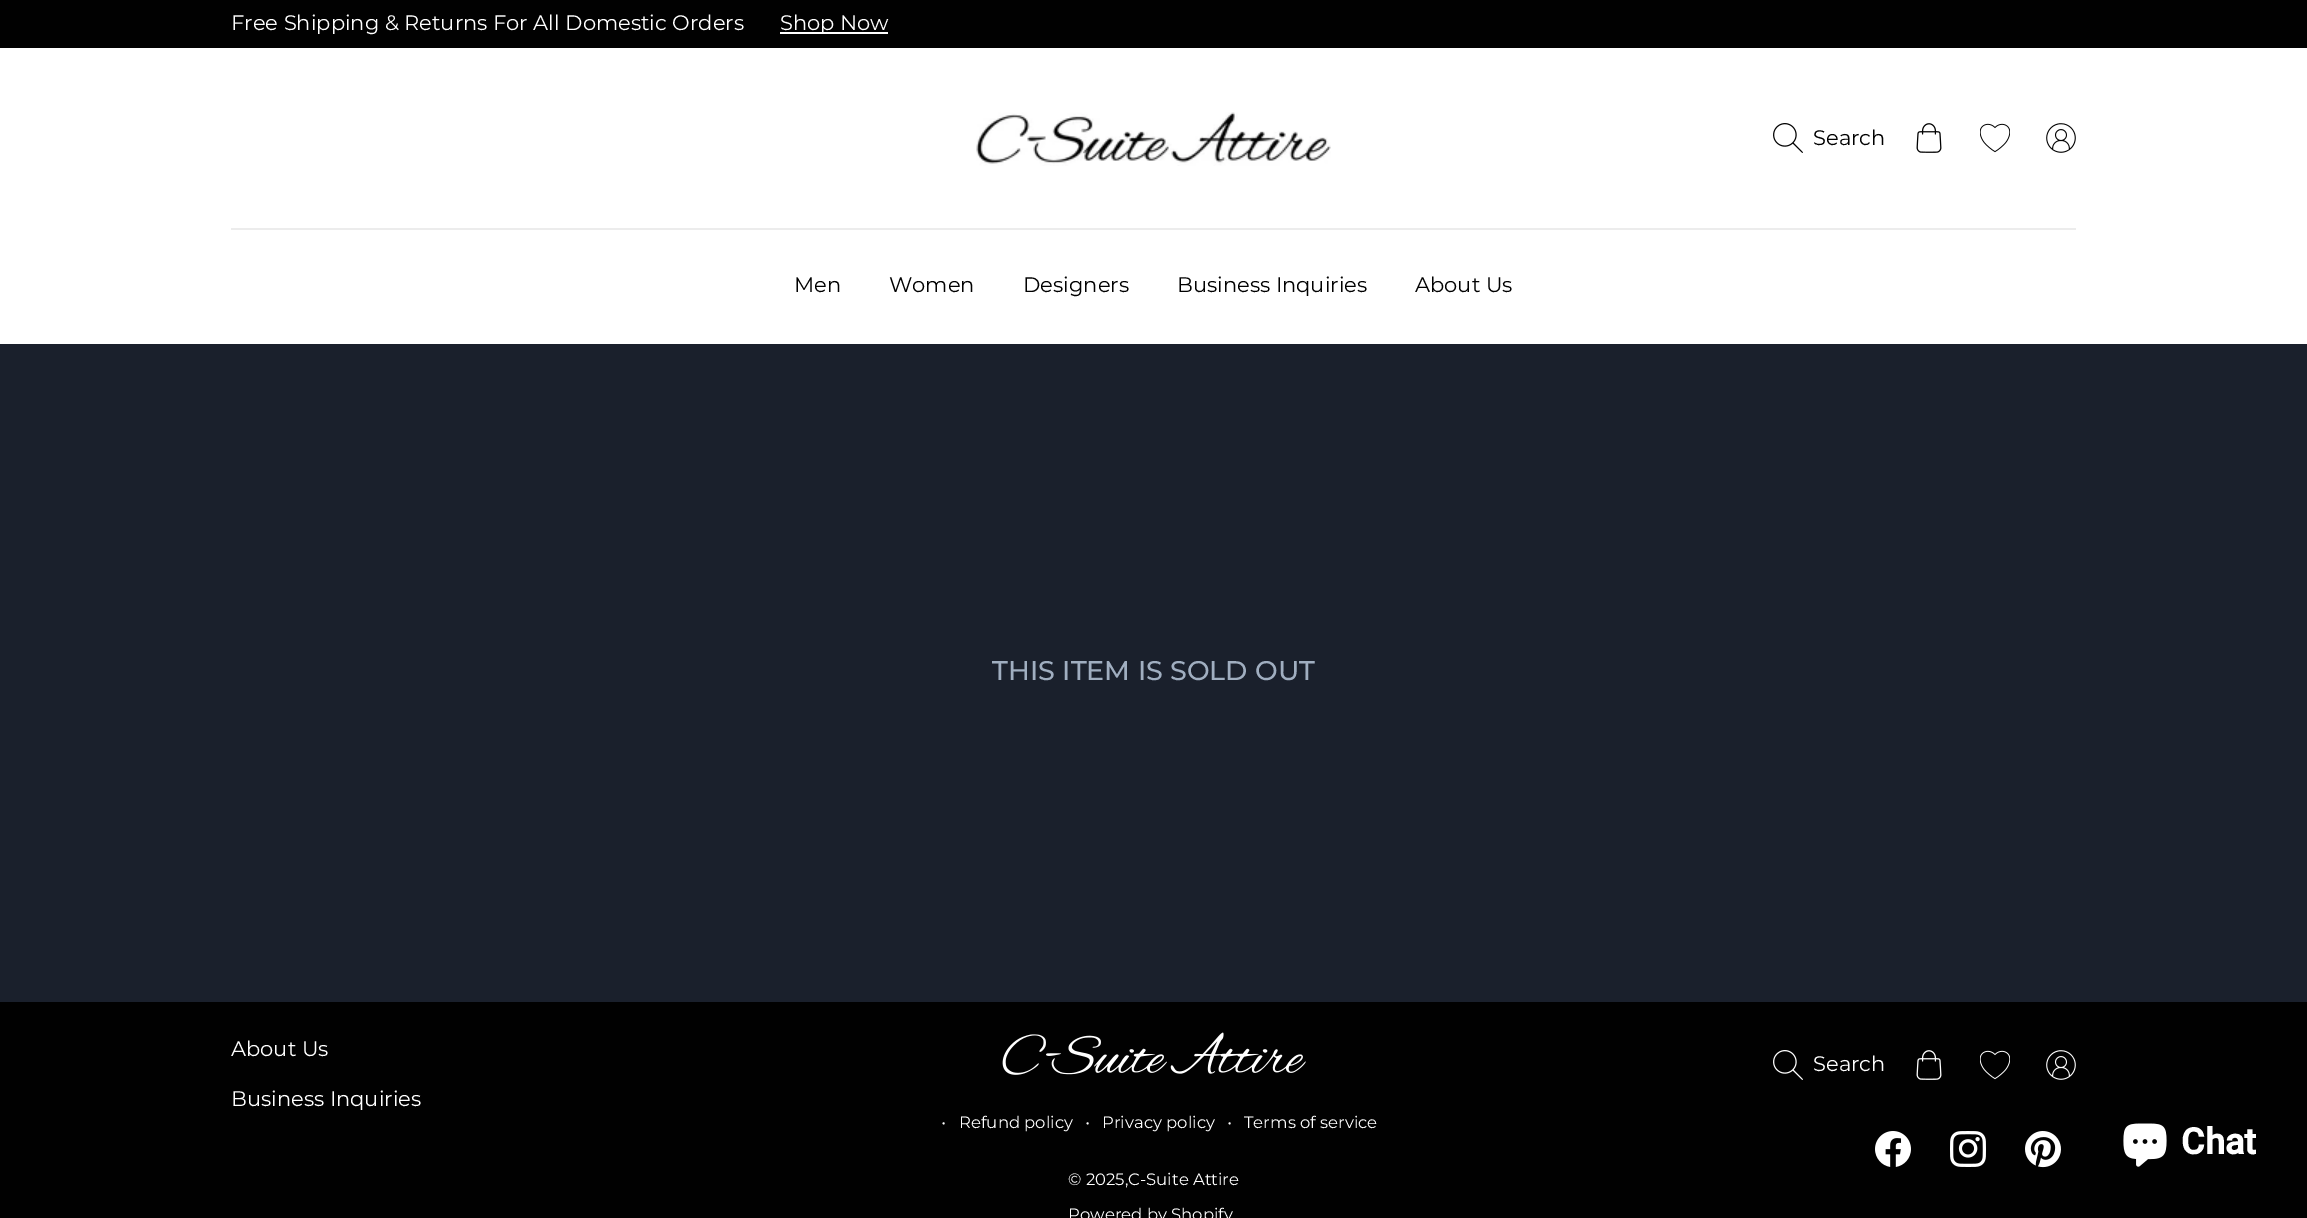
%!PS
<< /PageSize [2307 1218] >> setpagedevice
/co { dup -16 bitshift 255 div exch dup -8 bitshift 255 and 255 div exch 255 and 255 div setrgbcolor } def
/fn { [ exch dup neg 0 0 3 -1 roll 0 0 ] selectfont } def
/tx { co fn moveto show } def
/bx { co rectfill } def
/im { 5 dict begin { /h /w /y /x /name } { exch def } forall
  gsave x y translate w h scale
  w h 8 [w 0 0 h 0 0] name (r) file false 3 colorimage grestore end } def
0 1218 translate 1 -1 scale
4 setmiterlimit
0 0 2307 1218 16#FFFFFF bx
0 0 2307 48 16#010101 bx
780 32 108 2 16#FFFFFF bx
(media/1.raw) 976 112 355 54 im
(media/2.raw) 1773 123 30 30 im
(media/3.raw) 1916 123 26 30 im
(media/4.raw) 1980 123 30 30 im
(media/5.raw) 2046 123 30 30 im
231 228 1845 2 16#ECECEC bx
0 344 2307 658 16#1A202C bx
0 1002 2307 216 16#010101 bx
(media/6.raw) 1773 1050 30 30 im
(media/7.raw) 1916 1050 26 30 im
(media/8.raw) 1980 1050 30 30 im
(media/9.raw) 2046 1050 30 30 im
(media/10.raw) 1875 1131 36 36 im
(media/11.raw) 1950 1131 36 36 im
(media/12.raw) 2025 1131 36 37 im
(media/13.raw) 1002 1032 304 43 im
(media/14.raw) 2123 1123 44 44 im
(Free Shipping & Returns For All Domestic Orders) 231 30 /Montserrat-Regular 21 16#FFFFFF tx
(Shop Now) 780 30 /Montserrat-Regular 21 16#FFFFFF tx
(Search) 1813 145 /Montserrat-Regular 21 16#010101 tx
(Men) 794 292 /Montserrat-Regular 21 16#010101 tx
(Women) 889 292 /Montserrat-Regular 21 16#010101 tx
(Designers) 1023 292 /Montserrat-Regular 21 16#010101 tx
(Business Inquiries) 1177 292 /Montserrat-Regular 21 16#010101 tx
(About Us) 1415 292 /Montserrat-Regular 21 16#010101 tx
(THIS ITEM IS SOLD OUT) 992 680 /Montserrat-Medium 27 16#A0AEC0 tx
(About Us) 231 1056 /Montserrat-Regular 21 16#FFFFFF tx
(Business Inquiries) 231 1106 /Montserrat-Regular 21 16#FFFFFF tx
(Search) 1813 1071 /Montserrat-Regular 21 16#FFFFFF tx
(·) 941 1129 /Montserrat-Regular 21 16#FFFFFF tx
(Refund policy) 959 1128 /Montserrat-Regular 16.5 16#FFFFFF tx
(·) 1085 1129 /Montserrat-Regular 21 16#FFFFFF tx
(Privacy policy) 1102 1128 /Montserrat-Regular 16.5 16#FFFFFF tx
(·) 1227 1129 /Montserrat-Regular 21 16#FFFFFF tx
(Terms of service) 1244 1128 /Montserrat-Regular 16.5 16#FFFFFF tx
(© 2025,C-Suite Attire) 1068 1185 /Montserrat-Regular 16.5 16#FFFFFF tx
(Powered by Shopify) 1068 1220 /Montserrat-Regular 16.5 16#FFFFFF tx
(Chat) 2181 1154 /Roboto-Bold 36 16#FFFFFF tx
showpage
